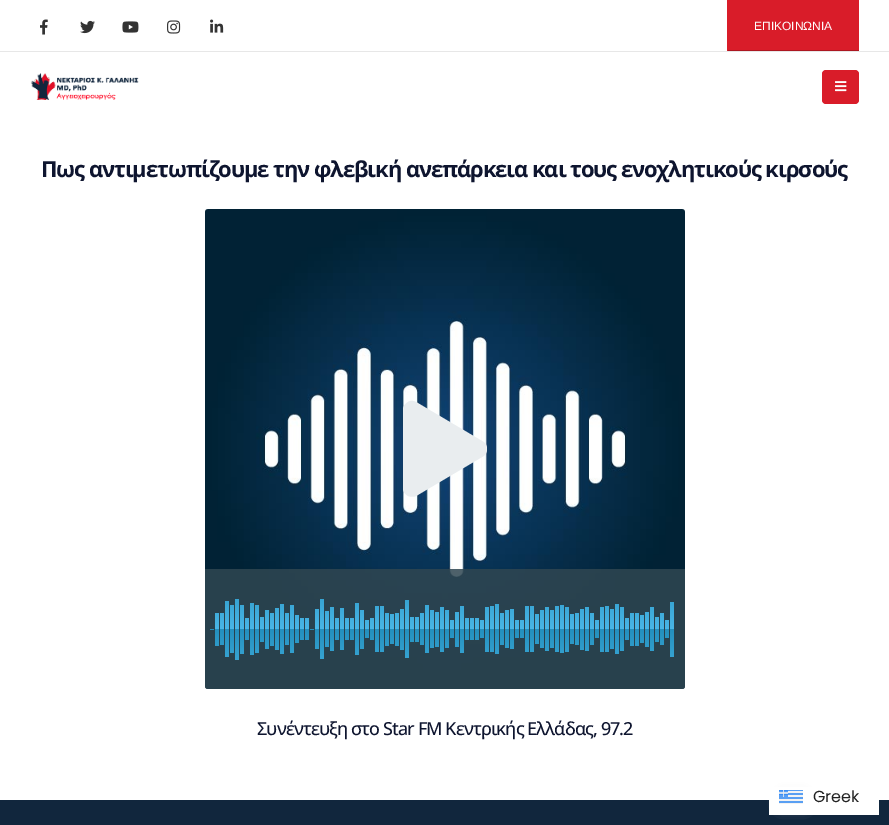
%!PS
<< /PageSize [889 825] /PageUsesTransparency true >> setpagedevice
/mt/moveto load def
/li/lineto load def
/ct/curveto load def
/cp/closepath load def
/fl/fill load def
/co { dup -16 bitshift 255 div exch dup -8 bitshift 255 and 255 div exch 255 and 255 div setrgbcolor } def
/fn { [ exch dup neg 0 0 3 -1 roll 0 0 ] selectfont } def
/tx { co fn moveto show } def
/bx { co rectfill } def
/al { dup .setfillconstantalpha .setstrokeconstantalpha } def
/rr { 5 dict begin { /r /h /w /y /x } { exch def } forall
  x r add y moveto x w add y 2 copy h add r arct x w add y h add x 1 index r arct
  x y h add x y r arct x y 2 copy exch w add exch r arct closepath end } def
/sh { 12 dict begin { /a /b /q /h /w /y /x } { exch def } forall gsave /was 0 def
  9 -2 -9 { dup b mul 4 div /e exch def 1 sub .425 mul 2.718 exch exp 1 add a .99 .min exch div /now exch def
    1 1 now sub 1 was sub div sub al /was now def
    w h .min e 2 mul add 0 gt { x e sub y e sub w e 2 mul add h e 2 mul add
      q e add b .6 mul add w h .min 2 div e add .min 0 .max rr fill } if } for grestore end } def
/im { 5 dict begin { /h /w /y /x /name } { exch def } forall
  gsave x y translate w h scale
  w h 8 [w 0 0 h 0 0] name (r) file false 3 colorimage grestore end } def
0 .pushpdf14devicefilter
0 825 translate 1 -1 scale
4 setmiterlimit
0 0 889 825 16#FFFFFF bx
0 51 889 1 16#E7E7E7 bx
(media/1.raw) 40 19 8 16 im
(media/2.raw) 80 20 15 14 im
(media/3.raw) 122 21 17 12 im
(media/4.raw) 167 20 14 14 im
(media/5.raw) 210 19 14 14 im
728 0 131 50 16#D91C29 bx
727 50 132 1 16#AC1721 bx
727 0 1 51 16#D91C29 bx
(media/6.raw) 30 73 109 27 im
822 70 37 34 4 rr fl
(media/7.raw) 835 81 12 11 im
(media/8.raw) 205 209 480 480 im
16#E9EDEF co
482 441 mt 486 443 487 446 487 449 ct 487 452 486 455 482 457 ct 416 496 li 414 497 411 497 408 496 ct 405 494 403 492 403 488 ct 403 410 li 403 406 405 404 408 402 ct 411 400 414 401 416 402 ct cp fl
0.85 al
16#2F4651 co
205 569 mt 685 569 li 685 686 li 685 687.5 683.5 689 682 689 ct 208 689 li 206.5 689 205 687.5 205 686 ct cp fl
1 al
(media/9.raw) 210 599 464 61 im
0 800 889 25 16#11263D bx
16#EEEEEE co
781 792 24 14 0 6 .8 sh
769 787 110 28 16#FFFFFF bx
(media/10.raw) 779 790 24 14 im
(ΕΠΙΚΟΙΝΩΝΙΑ) 754 30 /LiberationSans-Regular 12 16#FFFFFF tx
/OpenSans-Bold 22 fn
16#0E152F co
41 177 mt -1.1 0 (Πως αντιμετωπίζουμε την φλεβική ανεπάρκεια και τους ενοχλητικούς κιρσούς) ashow
/OpenSans-Medium 18 fn
257 735 mt -.9 0 (Συνέντευξη στο Star FM Κεντρικής Ελλάδας, 97.2) ashow
(Greek) 813 802 /Poppins-Regular 16 16#222222 tx
.poppdf14devicefilter showpage
